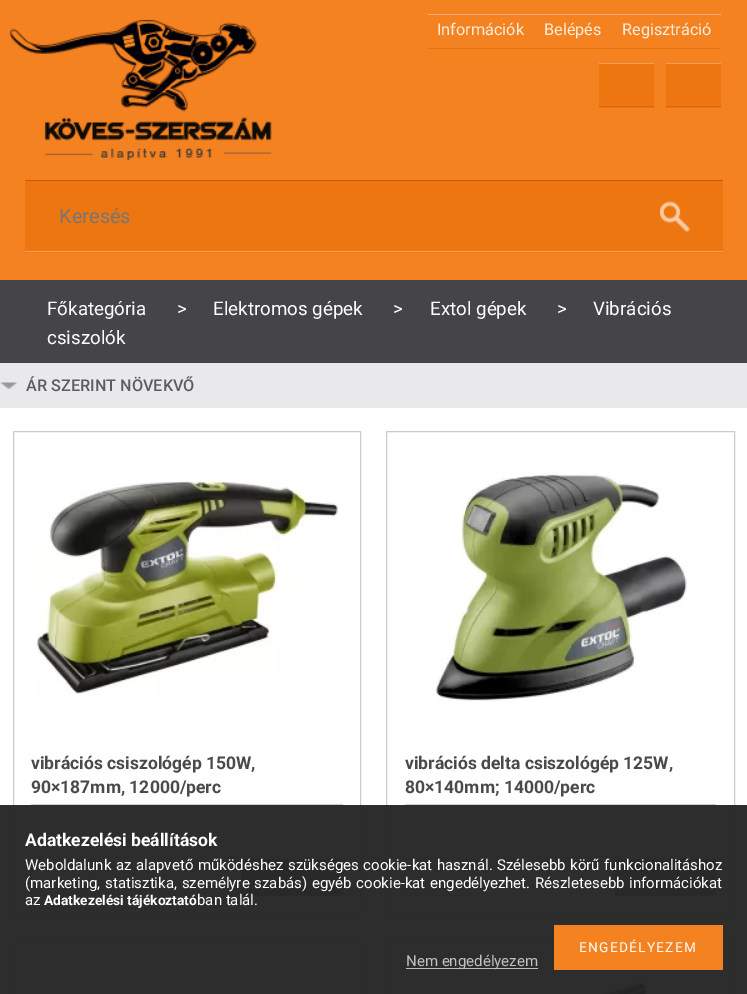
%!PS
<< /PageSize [747 994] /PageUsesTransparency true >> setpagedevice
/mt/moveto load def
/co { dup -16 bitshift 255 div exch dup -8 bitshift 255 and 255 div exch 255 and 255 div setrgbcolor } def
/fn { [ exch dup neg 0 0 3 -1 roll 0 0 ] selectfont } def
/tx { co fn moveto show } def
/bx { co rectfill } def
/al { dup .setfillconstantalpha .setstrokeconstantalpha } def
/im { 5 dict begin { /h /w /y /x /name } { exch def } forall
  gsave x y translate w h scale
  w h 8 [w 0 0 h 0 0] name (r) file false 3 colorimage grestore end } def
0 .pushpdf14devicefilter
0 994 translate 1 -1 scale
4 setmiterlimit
0 0 747 994 16#FFFFFF bx
0 0 747 280 16#F58220 bx
(media/1.raw) 9 19 263 142 im
428 14 293 1 16#F1B077 bx
428 48 293 1 16#E7730F bx
599 64 55 44 16#EE7610 bx
599 63 55 1 16#F39E54 bx
599 106 55 1 16#DA660E bx
666 64 55 44 16#EE7610 bx
666 63 55 1 16#F39E54 bx
666 106 55 1 16#DA660E bx
25 181 698 72 16#EE7610 bx
25 180 698 1 16#CA5809 bx
25 251 698 1 16#F0A462 bx
(media/2.raw) 659 201 32 32 im
0 280 747 83 16#454548 bx
0 363 747 45 16#E9E9EB bx
(media/3.raw) 0 382 18 7 im
16#CCCCCC co
13.5 431.5 347 487 rectstroke
(media/4.raw) 37 478 301 219 im
31 804 312 1 16#CCCCCC bx
31.5 859.5 64 36 rectstroke
241 859 102 37 16#A9A9AB bx
16#CCCCCC co
386.5 431.5 348 487 rectstroke
(media/5.raw) 436 472 251 230 im
405 804 311 1 16#CCCCCC bx
405.5 859.5 64 36 rectstroke
615 859 101 37 16#A9A9AB bx
16#CCCCCC co
13.5 939.5 347 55 rectstroke
386.5 939.5 348 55 rectstroke
(media/6.raw) 604 981 43 13 im
0.95 al
0 805 747 189 16#222222 bx
1 al
554 925 169 45 16#F58220 bx
406 968 132 1 16#C0C0C0 bx
(Információk) 437 35 /Roboto-Regular 16.25 16#FBEDDD tx
(Belépés) 544 35 /Roboto-Regular 16.25 16#FBEDDD tx
(Regisztráció) 622 35 /Roboto-Regular 16.25 16#FBEDDD tx
(Keresés) 59 223 /Roboto-Regular 20 16#757575 tx
(Főkategória) 47 315 /Roboto-Regular 18.75 16#FFFFFF tx
(>) 177 315 /Roboto-Regular 18.75 16#FFFFFF tx
(Elektromos gépek) 213 315 /Roboto-Regular 18.75 16#FFFFFF tx
(>) 393 315 /Roboto-Regular 18.75 16#FFFFFF tx
(Extol gépek) 430 315 /Roboto-Regular 18.75 16#FFFFFF tx
(>) 557 315 /Roboto-Regular 18.75 16#FFFFFF tx
(Vibrációs) 593 315 /Roboto-Regular 18.75 16#FFFFFF tx
(csiszolók) 47 344 /Roboto-Regular 18.75 16#FFFFFF tx
(ÁR SZERINT NÖVEKVŐ) 26 391 /Roboto-Medium 16.25 16#5D5D5F tx
(vibrációs csiszológép 150W,) 31 769 /Roboto-Bold 17.5 16#4A4A4D tx
(90×187mm, 12000/perc) 31 793 /Roboto-Bold 17.5 16#4A4A4D tx
(vibrációs delta csiszológép 125W,) 405 769 /Roboto-Bold 17.5 16#4A4A4D tx
(80×140mm; 14000/perc) 405 793 /Roboto-Bold 17.5 16#4A4A4D tx
(Adatkezelési beállítások) 25 846 /Roboto-Bold 17.5 16#FFFFFF tx
/Roboto-Regular 15 fn
25 870 mt .9 0 32 (Weboldalunk az alapvető működéshez szükséges cookie-kat használ. Szélesebb körű funkcionalitáshoz) widthshow
25 888 mt 1 0 32 (\(marketing, statisztika, személyre szabás\) egyéb cookie-kat engedélyezhet. Részletesebb információkat) widthshow
(az) 25 905 /Roboto-Regular 15 16#FFFFFF tx
(Adatkezelési tájékoztató) 44 905 /Roboto-Bold 13.75 16#FFFFFF tx
(ban talál.) 197 905 /Roboto-Regular 15 16#FFFFFF tx
/Roboto-Regular 13.75 fn
579 952 mt 1.25 0 (ENGEDÉLYEZEM) ashow
(Nem engedélyezem) 406 966 /Roboto-Regular 15 16#C0C0C0 tx
.poppdf14devicefilter showpage
